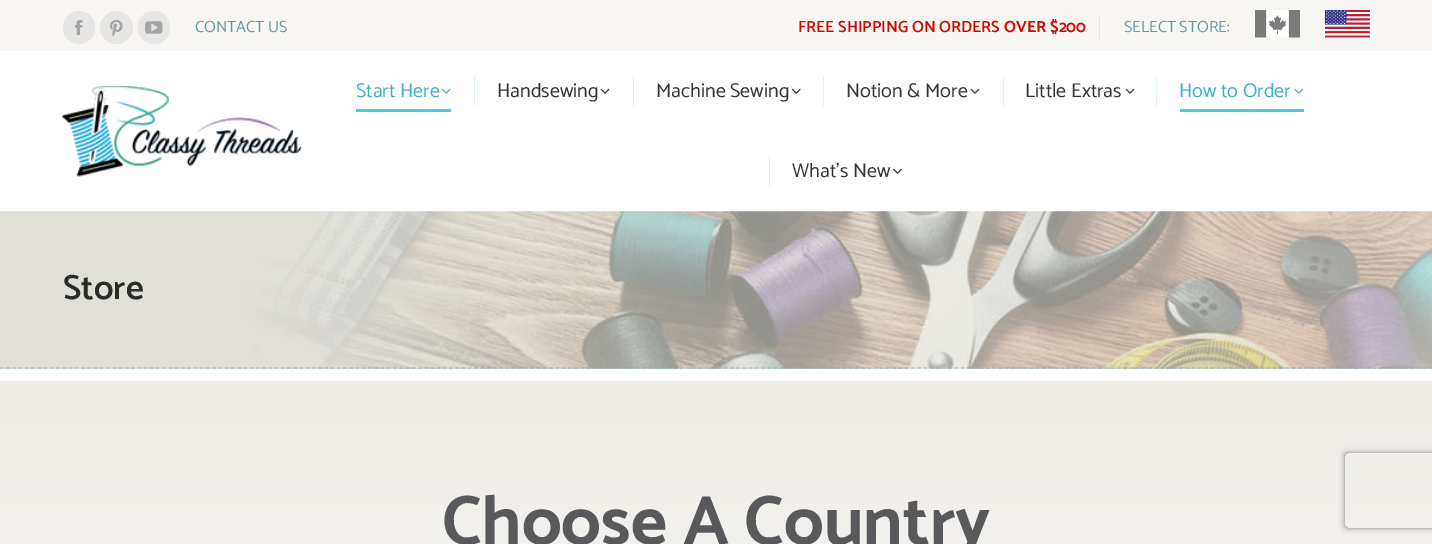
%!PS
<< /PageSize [1432 544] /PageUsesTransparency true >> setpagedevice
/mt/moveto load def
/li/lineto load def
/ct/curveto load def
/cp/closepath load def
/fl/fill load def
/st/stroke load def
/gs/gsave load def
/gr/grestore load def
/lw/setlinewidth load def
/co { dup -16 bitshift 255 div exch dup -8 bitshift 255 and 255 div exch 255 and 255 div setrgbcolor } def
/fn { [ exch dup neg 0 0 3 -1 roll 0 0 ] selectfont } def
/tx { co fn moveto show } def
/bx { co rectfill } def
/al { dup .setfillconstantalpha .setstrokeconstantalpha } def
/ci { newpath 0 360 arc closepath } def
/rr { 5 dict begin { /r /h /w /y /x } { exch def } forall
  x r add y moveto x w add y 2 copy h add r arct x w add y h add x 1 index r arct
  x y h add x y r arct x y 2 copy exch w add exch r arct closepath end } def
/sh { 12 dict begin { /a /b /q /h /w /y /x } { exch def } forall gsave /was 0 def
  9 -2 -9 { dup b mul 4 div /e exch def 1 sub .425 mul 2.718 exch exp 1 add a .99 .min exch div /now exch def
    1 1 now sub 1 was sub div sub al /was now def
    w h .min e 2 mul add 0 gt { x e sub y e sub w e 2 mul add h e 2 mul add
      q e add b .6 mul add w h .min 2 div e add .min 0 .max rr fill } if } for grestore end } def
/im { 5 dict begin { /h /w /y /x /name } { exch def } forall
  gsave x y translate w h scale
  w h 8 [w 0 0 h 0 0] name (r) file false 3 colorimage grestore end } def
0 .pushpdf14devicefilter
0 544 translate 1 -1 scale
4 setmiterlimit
0 0 1432 544 16#FFFFFF bx
0 0 1432 51 16#F7F6F2 bx
16#E7E6E4 co
63 11 32 33 16 rr fl
(media/1.raw) 75 20 8 15 im
116.5 27.5 16.5 ci fl
(media/2.raw) 109 20 14 17 im
138 11 32 33 16 rr fl
(media/3.raw) 145 21 18 13 im
1099 16 1 24 16#E3E3E3 bx
(media/4.raw) 1255 10 45 28 im
(media/5.raw) 1325 10 45 28 im
(media/6.raw) 62 85 240 92 im
(media/7.raw) 441 88 10 6 im
356 109 95 3 16#54C6DD bx
474 76 1 30 16#DDF4F3 bx
(media/8.raw) 600 88 10 6 im
633 76 1 30 16#DDF4F3 bx
(media/9.raw) 791 88 10 6 im
823 76 1 30 16#DDF4F3 bx
(media/8.raw) 970 88 10 6 im
1003 76 1 30 16#DDF4F3 bx
(media/8.raw) 1125 88 10 6 im
1156 76 1 30 16#DDF4F3 bx
(media/10.raw) 1294 88 10 6 im
1180 109 124 3 16#54C6DD bx
769 156 1 30 16#DDF4F3 bx
(media/11.raw) 893 168 9 6 im
(media/12.raw) 0 211 1432 158 im
0.56 al
16#70AFB2 co
1.2 lw
[3.75 2.49] 0 setdash
0 368 mt 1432.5 368 li st
1 al
gs 0 381 mt 1432 381 li 1432 544 li 0 544 li cp clip newpath
<< /ShadingType 2 /ColorSpace /DeviceRGB /Coords [716 381 716 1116] /Extend [true true] /Function << /FunctionType 2 /Domain [0 1] /C0 [.941 .929 .91] /C1 [1 1 1] /N 1 >> >> shfill gr
gs
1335 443 mt 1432 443 li 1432 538 li 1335 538 li cp 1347.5 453 mt 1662.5 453 li 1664 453 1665 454 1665 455.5 ct 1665 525.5 li 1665 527 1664 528 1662.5 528 ct 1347.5 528 li 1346 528 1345 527 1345 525.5 ct 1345 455.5 li 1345 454 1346 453 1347.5 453 ct cp eoclip newpath
16#808080 co
1345 453 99 75 2.5 3 1 sh
gr
(CONTACT US) 195 32 /Catamaran-Regular 16.25 16#6698A0 tx
(FREE SHIPPING ON ORDERS) 798 32 /Catamaran-SemiBold 16.25 16#CB0903 tx
(OVER $200) 1004 32 /Catamaran-Bold 16.25 16#CB0903 tx
(SELECT STORE:) 1124 32 /Catamaran-Regular 16.25 16#6698A0 tx
(Start Here) 356 97 /Catamaran-Regular 20 16#3AB1C9 tx
(Handsewing) 497 97 /Catamaran-Regular 20 16#333333 tx
(Machine Sewing) 656 97 /Catamaran-Regular 20 16#333333 tx
(Notion & More) 846 97 /Catamaran-Regular 20 16#333333 tx
(Little Extras) 1025 97 /Catamaran-Regular 20 16#333333 tx
(How to Order) 1179 97 /Catamaran-Regular 20 16#3AB1C9 tx
(What’s New) 792 177 /Catamaran-Regular 20 16#333333 tx
(Store) 63 299 /Catamaran-SemiBold 35 16#2B2B2B tx
(Choose A Country) 442 544 /Catamaran-Bold 70 16#59595B tx
.poppdf14devicefilter showpage
